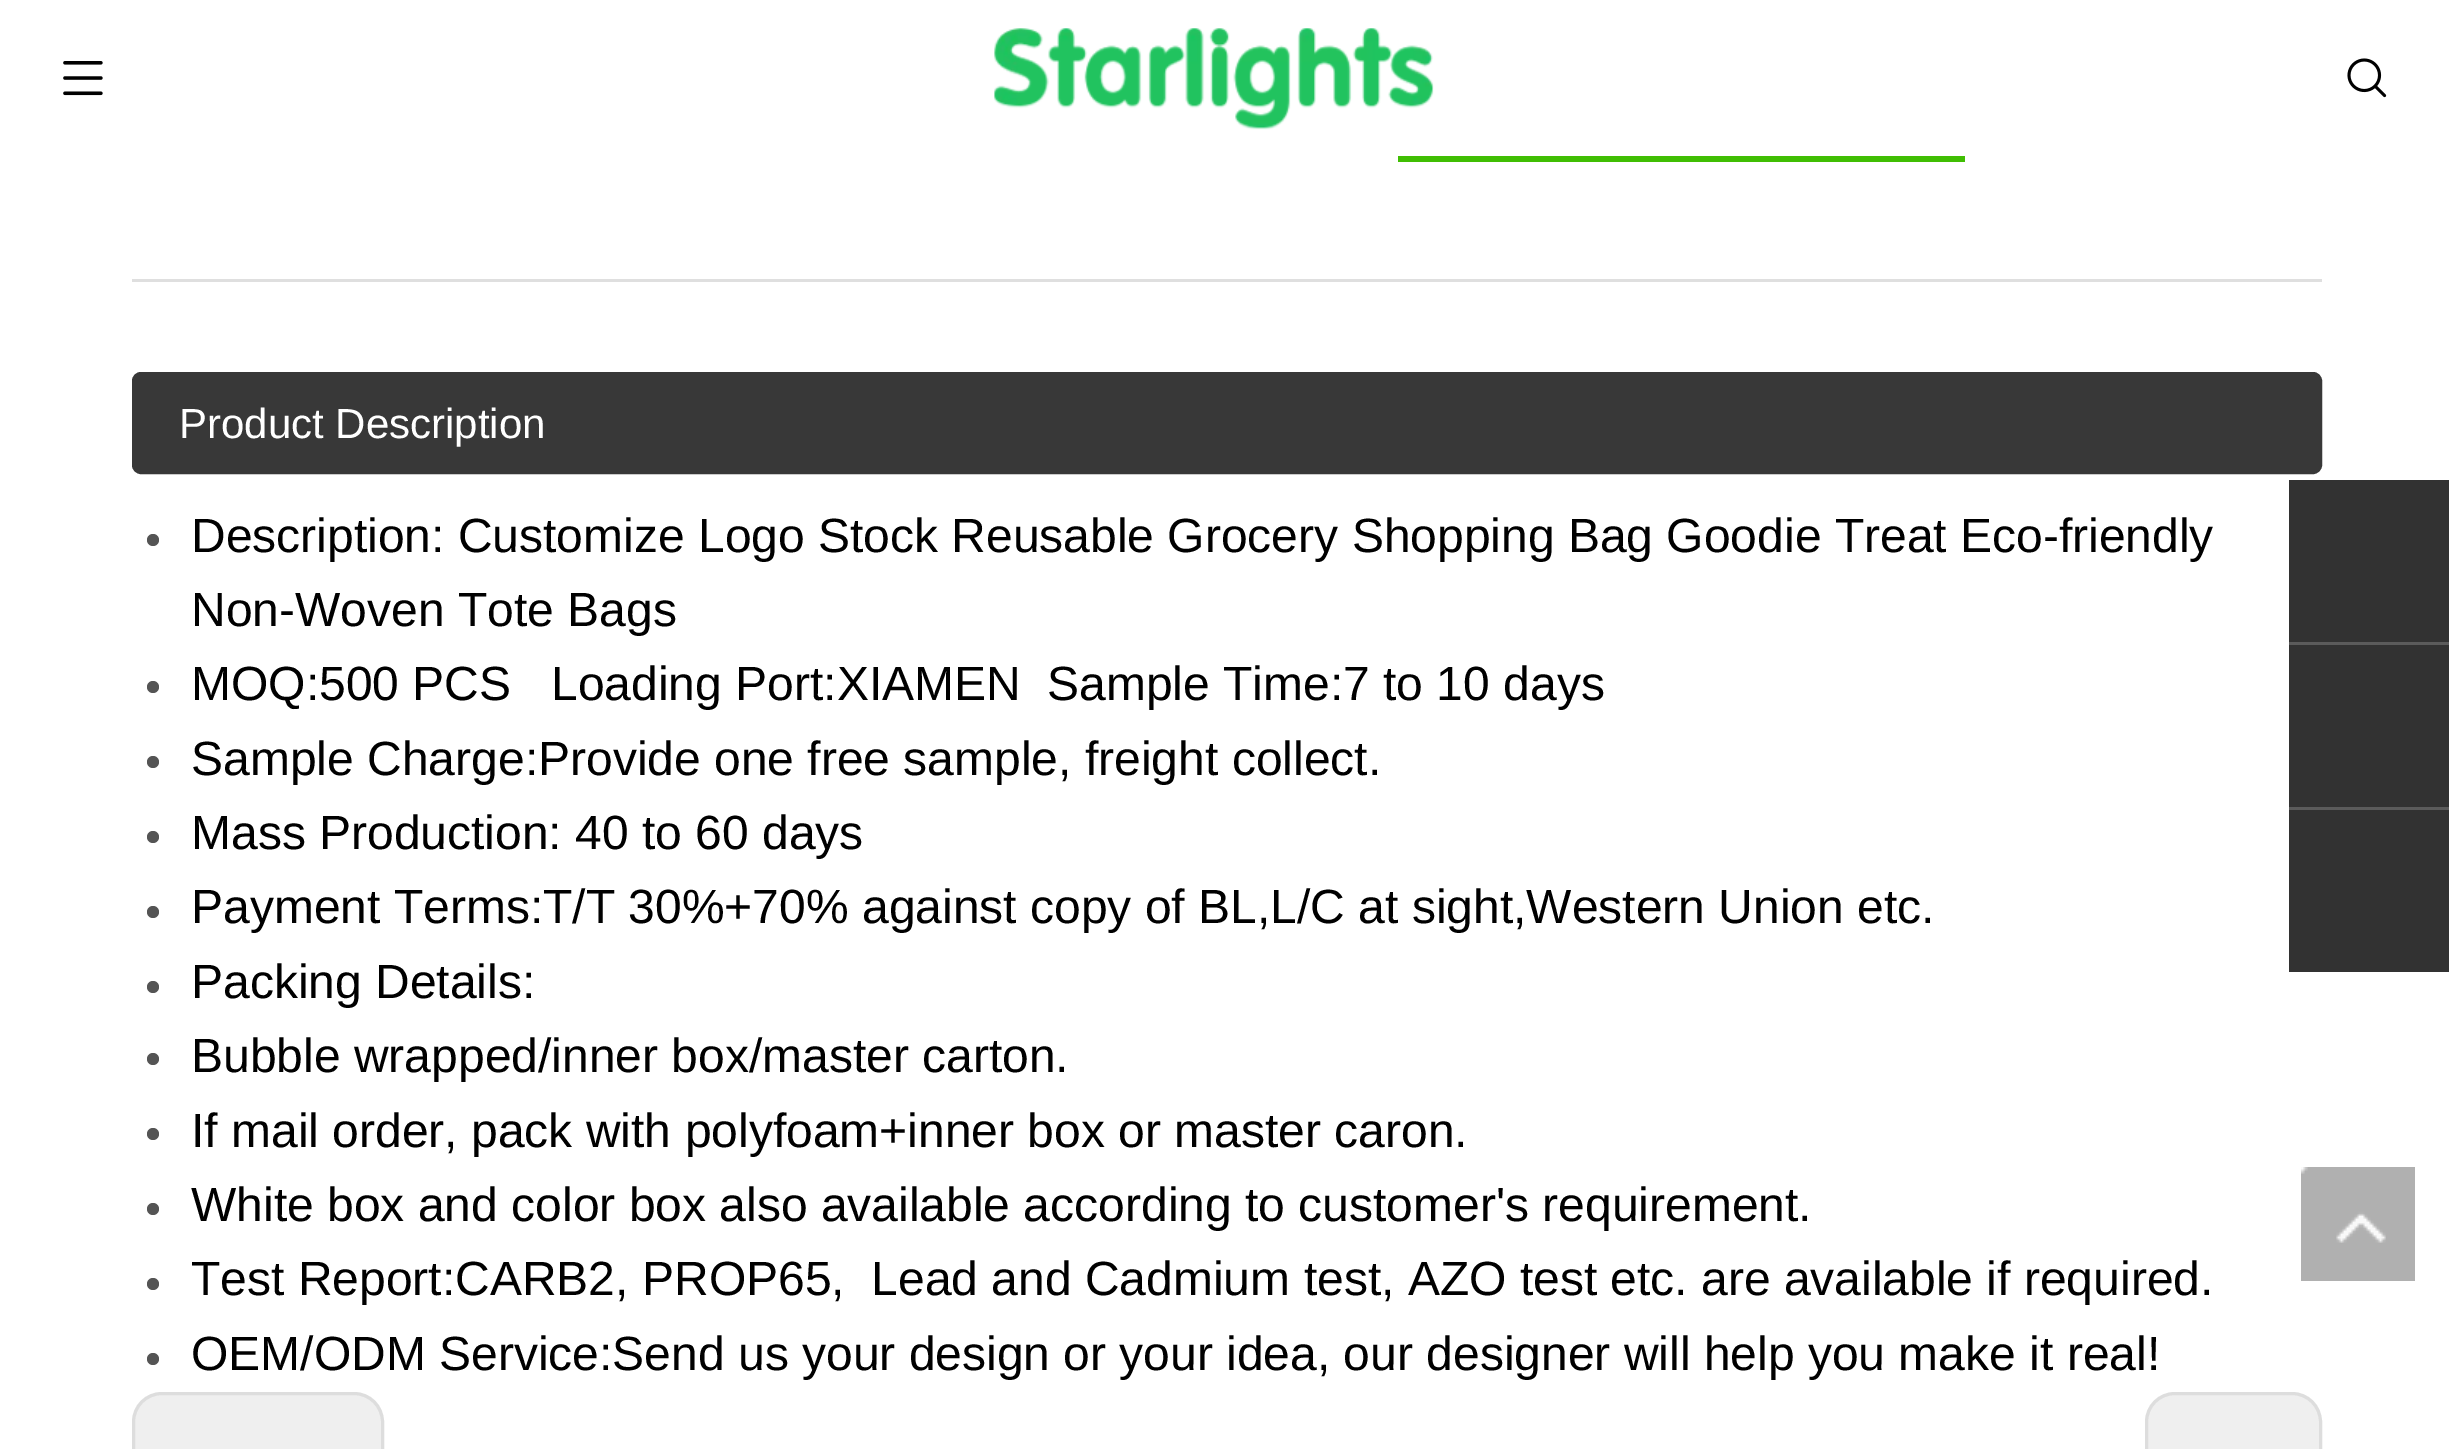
%!PS
<< /PageSize [2449 1449] >> setpagedevice
/fl/fill load def
/st/stroke load def
/gs/gsave load def
/gr/grestore load def
/lw/setlinewidth load def
/co { dup -16 bitshift 255 div exch dup -8 bitshift 255 and 255 div exch 255 and 255 div setrgbcolor } def
/fn { [ exch dup neg 0 0 3 -1 roll 0 0 ] selectfont } def
/tx { co fn moveto show } def
/bx { co rectfill } def
/ci { newpath 0 360 arc closepath } def
/rr { 5 dict begin { /r /h /w /y /x } { exch def } forall
  x r add y moveto x w add y 2 copy h add r arct x w add y h add x 1 index r arct
  x y h add x y r arct x y 2 copy exch w add exch r arct closepath end } def
/im { 5 dict begin { /h /w /y /x /name } { exch def } forall
  gsave x y translate w h scale
  w h 8 [w 0 0 h 0 0] name (r) file false 3 colorimage grestore end } def
0 1449 translate 1 -1 scale
4 setmiterlimit
0 0 2449 1449 16#FFFFFF bx
(media/1.raw) 63 61 40 35 im
(media/2.raw) 994 28 440 102 im
(media/3.raw) 2347 58 40 40 im
1398 156 567 6 16#40BE03 bx
132 279 2190 3 16#DFDFDF bx
16#383838 co
133.5 373.5 2187 99 7.5 rr gs fl gr
3 lw
st
16#545454 co
153 540 6 ci fl
153 687 6 ci fl
153 762 6 ci fl
153 837 6 ci fl
153 912 6 ci fl
153 987 6 ci fl
153 1059 6 ci fl
153 1134 6 ci fl
153 1209 6 ci fl
153 1284 6 ci fl
153 1359 6 ci fl
16#EFEFEF co
133.5 1393.5 249 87 28.5 rr gs fl gr
16#DDDDDD co
st
16#EFEFEF co
2146.5 1393.5 174 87 28.5 rr gs fl gr
16#DDDDDD co
st
2289 480 160 492 16#323232 bx
2289 642 160 3 16#5B5B5B bx
2289 807 160 3 16#5B5B5B bx
(media/4.raw) 2301 1167 114 114 im
(Product Description) 179 438 /LiberationSans-Regular 42 16#FFFFFF tx
(Description: Customize Logo Stock Reusable Grocery Shopping Bag Goodie Treat Eco-friendly) 191 552 /LiberationSans-Regular 48 16#000000 tx
(Non-Woven Tote Bags) 191 626 /LiberationSans-Regular 48 16#000000 tx
(MOQ:500 PCS) 191 700 /LiberationSans-Regular 48 16#000000 tx
(Loading Port:XIAMEN) 551 700 /LiberationSans-Regular 48 16#000000 tx
(Sample Time:7 to 10 days) 1047 700 /LiberationSans-Regular 48 16#000000 tx
(Sample Charge:Provide one free sample, freight collect.) 191 775 /LiberationSans-Regular 48 16#000000 tx
(Mass Production: 40 to 60 days) 191 849 /LiberationSans-Regular 48 16#000000 tx
(Payment Terms:T/T 30%+70% against copy of BL,L/C at sight,Western Union etc.) 191 923 /LiberationSans-Regular 48 16#000000 tx
(Packing Details:) 191 998 /LiberationSans-Regular 48 16#000000 tx
(Bubble wrapped/inner box/master carton.) 191 1072 /LiberationSans-Regular 48 16#000000 tx
(If mail order, pack with polyfoam+inner box or master caron.) 191 1147 /LiberationSans-Regular 48 16#000000 tx
(White box and color box also available according to customer's requirement.) 191 1221 /LiberationSans-Regular 48 16#000000 tx
(Test Report:CARB2, PROP65,  Lead and Cadmium test, AZO test etc. are available if required.) 191 1295 /LiberationSans-Regular 48 16#000000 tx
(OEM/ODM Service:Send us your design or your idea, our designer will help you make it real!) 191 1370 /LiberationSans-Regular 48 16#000000 tx
showpage
